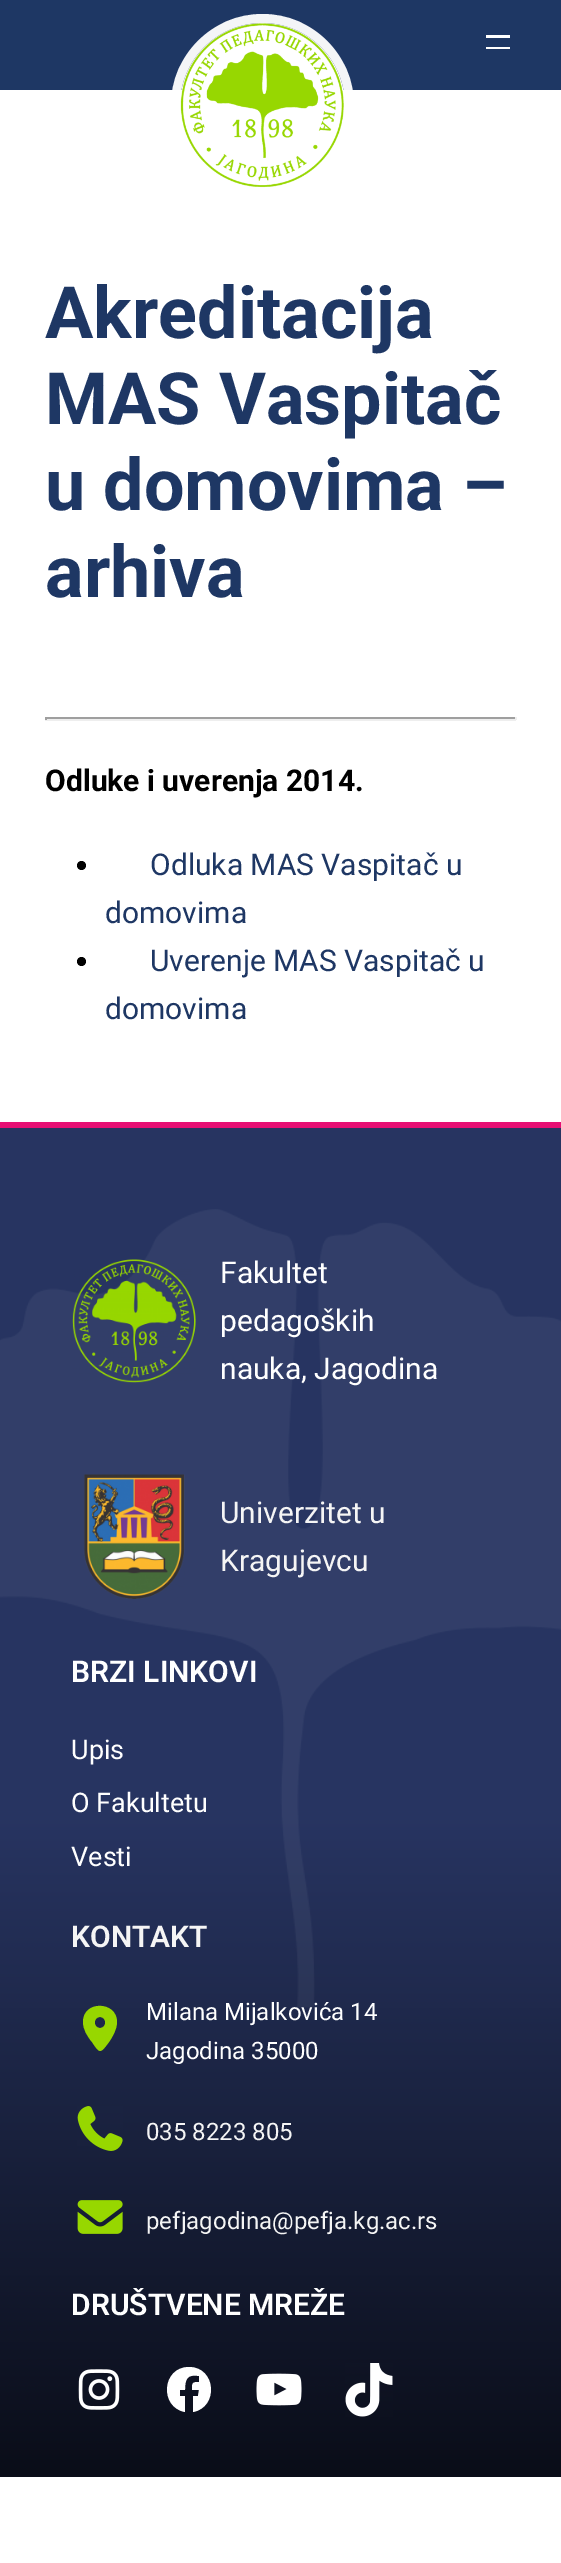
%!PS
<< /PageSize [561 2563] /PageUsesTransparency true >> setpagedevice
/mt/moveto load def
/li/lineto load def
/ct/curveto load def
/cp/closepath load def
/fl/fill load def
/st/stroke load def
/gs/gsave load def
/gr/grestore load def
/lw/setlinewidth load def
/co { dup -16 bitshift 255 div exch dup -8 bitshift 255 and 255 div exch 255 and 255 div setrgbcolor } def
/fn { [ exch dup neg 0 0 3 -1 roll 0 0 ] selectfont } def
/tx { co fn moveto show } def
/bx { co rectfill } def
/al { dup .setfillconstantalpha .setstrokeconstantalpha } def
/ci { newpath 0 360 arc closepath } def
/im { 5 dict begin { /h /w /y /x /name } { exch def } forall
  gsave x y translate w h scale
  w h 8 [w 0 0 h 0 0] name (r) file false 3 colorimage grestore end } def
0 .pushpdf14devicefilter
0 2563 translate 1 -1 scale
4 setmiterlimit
0 0 561 2563 16#FFFFFF bx
0 0 561 90 16#1E3764 bx
0.95 al
16#FFFFFF co
9 lw
262.5 105.5 87 ci st
1 al
262.5 105.5 82.5 ci fl
(media/1.raw) 180 23 164 165 im
486 35 24 3 16#FFFFFF bx
486 47 24 2 16#FFFFFF bx
45 717 471 2 16#9F9F9F bx
515 717 2 3 16#EEEEEE bx
45 719 471 2 16#EEEEEE bx
45 717 2 3 16#9F9F9F bx
16#000000 co
81.5 865.5 4.5 ci fl
81.5 961.5 4.5 ci fl
0 1122 561 6 16#E60F73 bx
gs 0 1128 mt 561 1128 li 561 2477 li 0 2477 li cp clip newpath
<< /ShadingType 2 /ColorSpace /DeviceRGB /Coords [281 2477 281 1128] /Extend [true true] /Function << /FunctionType 3 /Domain [0 1] /Functions [<< /FunctionType 2 /Domain [0 1] /C0 [.039 .051 .094] /C1 [.153 .204 .38] /N 1 >> << /FunctionType 2 /Domain [0 1] /C0 [.153 .204 .38] /C1 [.153 .204 .38] /N 1 >>] /Bounds [.49] /Encode [0 1 0 1] >> >> shfill gr
(media/2.raw) 0 1209 561 799 im
(media/3.raw) 72 1259 124 124 im
(media/4.raw) 83 1474 102 125 im
16#97D700 co
83 2022 mt 83 2000 117 2001 117 2022 ct 117 2029 113 2036 109 2042 ct 100 2054 100 2054 92 2042 ct 87 2036 83 2029 83 2022 ct cp 100 2028 mt 107 2028 107 2017 100 2017 ct 93 2017 93 2028 100 2028 ct cp fl
(media/5.raw) 77 2106 46 45 im
(media/6.raw) 77 2200 46 34 im
(media/7.raw) 78 2369 42 41 im
16#FFFFFF co
189 2367 mt 162 2367 159 2407 185 2412 ct 185 2396 li 180 2396 li 180 2390 li 185 2390 li 185 2379 187 2374 199 2376 ct 199 2382 li 192 2382 192 2383 192 2390 ct 199 2390 li 198 2396 li 193 2396 li 193 2412 li 219 2407 216 2367 189 2367 ct cp fl
(media/8.raw) 256 2373 46 33 im
(media/9.raw) 345 2363 48 54 im
(Akreditacija) 45 338 /Roboto-Bold 72 16#1E3764 tx
(MAS Vaspitač) 45 424 /Roboto-Bold 72 16#1E3764 tx
(u domovima –) 45 510 /Roboto-Bold 72 16#1E3764 tx
(arhiva) 45 597 /Roboto-Bold 72 16#1E3764 tx
(Odluke i uverenja 2014.) 45 791 /Roboto-Bold 30 16#000000 tx
(Odluka MAS Vaspitač u) 150 875 /Roboto-Regular 30 16#1E3764 tx
(domovima) 105 923 /Roboto-Regular 30 16#1E3764 tx
(Uverenje MAS Vaspitač u) 150 971 /Roboto-Regular 30 16#1E3764 tx
(domovima) 105 1019 /Roboto-Regular 30 16#1E3764 tx
(Fakultet) 220 1283 /Roboto-Regular 30 16#FFFFFF tx
(pedagoških) 220 1331 /Roboto-Regular 30 16#FFFFFF tx
(nauka, Jagodina) 220 1379 /Roboto-Regular 30 16#FFFFFF tx
(Univerzitet u) 220 1523 /Roboto-Regular 30 16#F5F5F5 tx
(Kragujevcu) 220 1571 /Roboto-Regular 30 16#F5F5F5 tx
(BRZI LINKOVI) 71 1682 /Roboto-SemiBold 30 16#FFFFFF tx
(Upis) 71 1759 /Roboto-Regular 27 16#FFFFFF tx
(O Fakultetu) 71 1812 /Roboto-Regular 27 16#FFFFFF tx
(Vesti) 71 1866 /Roboto-Regular 27 16#FFFFFF tx
(KONTAKT) 71 1947 /Roboto-SemiBold 30 16#F5F5F5 tx
(Milana Mijalkovića 14) 146 2020 /Roboto-Regular 24 16#FFFFFF tx
(Jagodina 35000) 146 2059 /Roboto-Regular 24 16#FFFFFF tx
(035 8223 805) 146 2140 /Roboto-Regular 24 16#F5F5F5 tx
(pefjagodina@pefja.kg.ac.rs) 146 2229 /Roboto-Regular 24 16#F5F5F5 tx
(DRUŠTVENE MREŽE) 71 2315 /Roboto-SemiBold 30 16#FFFFFF tx
.poppdf14devicefilter showpage
